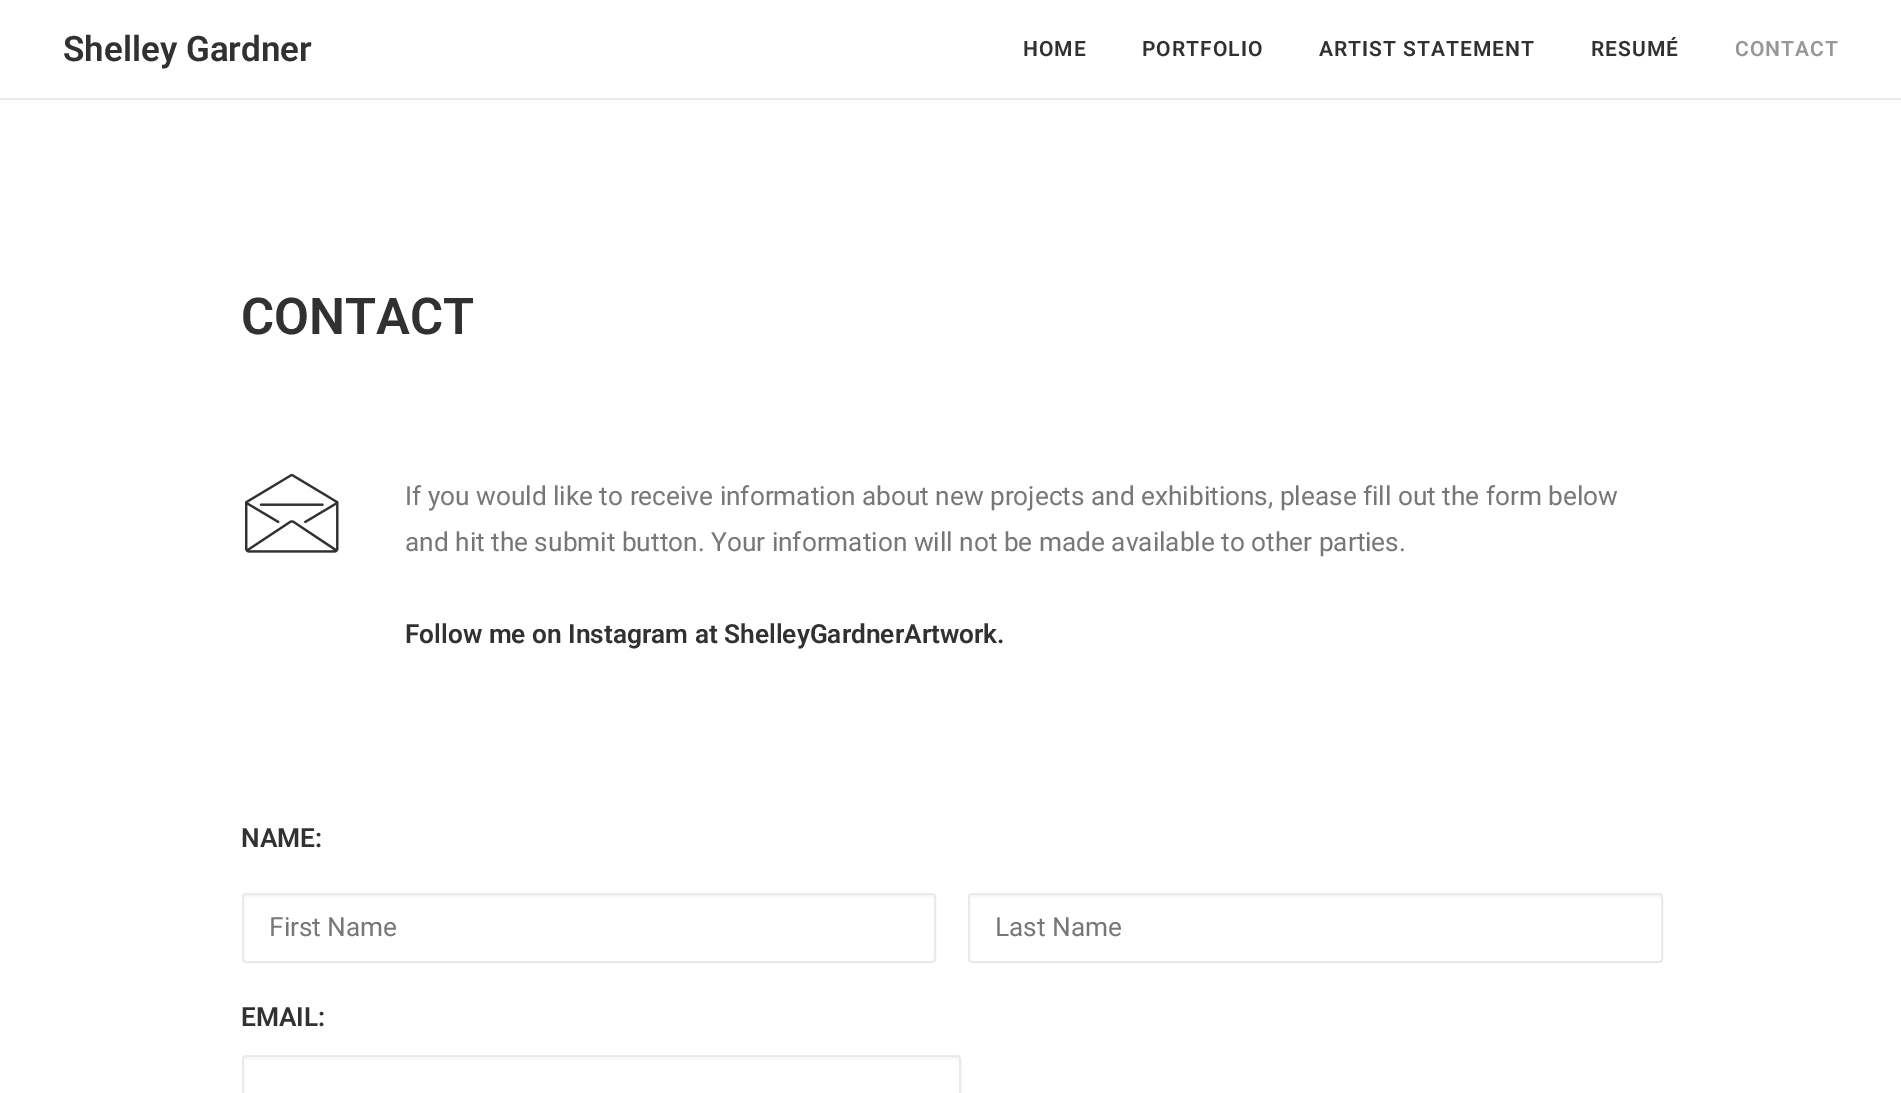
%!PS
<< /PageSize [1901 1093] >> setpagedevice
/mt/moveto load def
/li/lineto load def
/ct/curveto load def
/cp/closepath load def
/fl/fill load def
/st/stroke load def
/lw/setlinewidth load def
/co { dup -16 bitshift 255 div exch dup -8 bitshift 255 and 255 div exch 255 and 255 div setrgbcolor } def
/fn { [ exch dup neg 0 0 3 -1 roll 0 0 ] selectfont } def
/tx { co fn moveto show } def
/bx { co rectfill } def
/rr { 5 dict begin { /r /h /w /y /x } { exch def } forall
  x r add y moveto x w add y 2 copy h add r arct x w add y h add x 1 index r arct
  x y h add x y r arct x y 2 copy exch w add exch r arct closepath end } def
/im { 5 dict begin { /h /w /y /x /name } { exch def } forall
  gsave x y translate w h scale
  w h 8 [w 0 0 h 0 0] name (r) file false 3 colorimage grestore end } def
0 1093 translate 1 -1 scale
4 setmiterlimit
0 0 1901 1093 16#FFFFFF bx
0 98 1901 2 16#EAEAEA bx
(media/1.raw) 245 473 94 80 im
16#F9F9F9 co
245 898 mt 933 898 li 934 898 934 899 934 900 ct 934 961 li 935 959 li 935 896 li 935 895 934 894 933 894 ct 245 894 li 242 894 243 898 243 900 ct 243 899 244 898 245 898 ct cp fl
16#EAEAEA co
2 lw
243 894 692 68 3 rr st
16#F9F9F9 co
971 898 mt 1659 898 li 1660 898 1661 899 1661 900 ct 1661 896 li 1661 895 1660 894 1659 894 ct 972 894 li 971 894 970 895 970 896 ct 970 900 li 970 899 970 898 971 898 ct cp fl
16#EAEAEA co
969 894 693 68 3 rr st
16#F9F9F9 co
245 1060 mt 957 1060 li 958 1060 959 1061 959 1062 ct 959 1058 li 958 1057 li 245 1057 li 242 1057 243 1060 243 1062 ct 243 1061 244 1060 245 1060 ct cp fl
16#EAEAEA co
243 1056 717 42 3 rr st
(Shelley Gardner) 63 61 /Roboto-SemiBold 35 16#303133 tx
/Roboto-SemiBold 21 fn
1023 56 mt 1 0 (HOME) ashow
1142 56 mt 1 0 (PORTFOLIO) ashow
1319 56 mt 1 0 (ARTIST STATEMENT) ashow
1591 56 mt 1 0 (RESUMÉ) ashow
16#989899 co
1735 56 mt 1 0 (CONTACT) ashow
(CONTACT) 241 334 /Roboto-SemiBold 50.75 16#303133 tx
(If you would like to receive information about new projects and exhibitions, please fill out the form below) 405 505 /Roboto-Regular 26.25 16#777777 tx
(and hit the submit button. Your information will not be made available to other parties.) 405 551 /Roboto-Regular 26.25 16#777777 tx
(Follow me on Instagram at ShelleyGardnerArtwork.) 405 643 /Roboto-SemiBold 26.25 16#303133 tx
(NAME:) 241 847 /Roboto-SemiBold 26.25 16#303133 tx
(First Name) 269 936 /Roboto-Regular 26.25 16#777777 tx
(Last Name) 995 936 /Roboto-Regular 26.25 16#777777 tx
(EMAIL:) 241 1026 /Roboto-SemiBold 26.25 16#303133 tx
showpage
